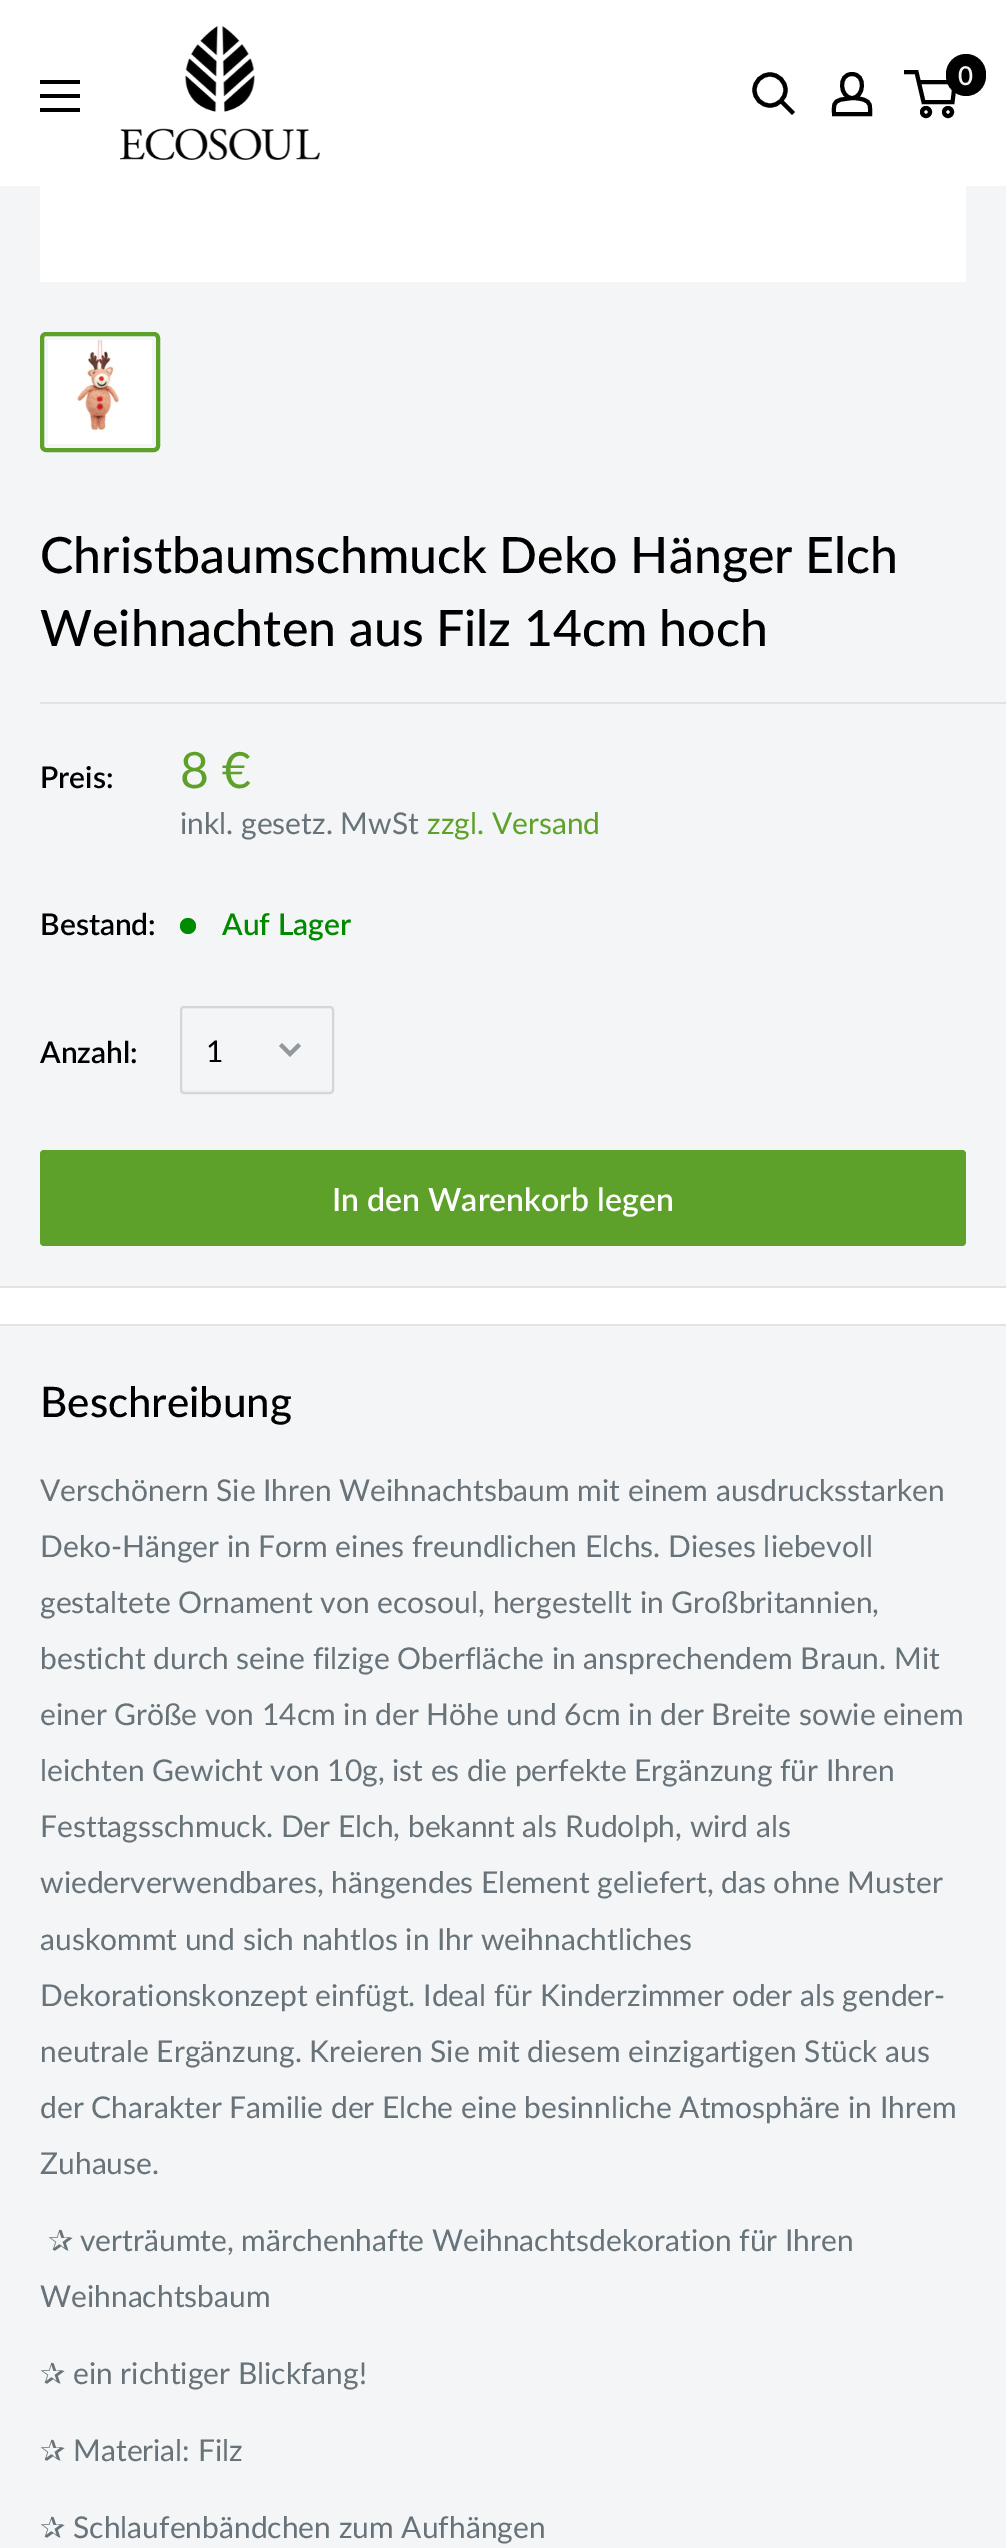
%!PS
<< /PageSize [1006 2548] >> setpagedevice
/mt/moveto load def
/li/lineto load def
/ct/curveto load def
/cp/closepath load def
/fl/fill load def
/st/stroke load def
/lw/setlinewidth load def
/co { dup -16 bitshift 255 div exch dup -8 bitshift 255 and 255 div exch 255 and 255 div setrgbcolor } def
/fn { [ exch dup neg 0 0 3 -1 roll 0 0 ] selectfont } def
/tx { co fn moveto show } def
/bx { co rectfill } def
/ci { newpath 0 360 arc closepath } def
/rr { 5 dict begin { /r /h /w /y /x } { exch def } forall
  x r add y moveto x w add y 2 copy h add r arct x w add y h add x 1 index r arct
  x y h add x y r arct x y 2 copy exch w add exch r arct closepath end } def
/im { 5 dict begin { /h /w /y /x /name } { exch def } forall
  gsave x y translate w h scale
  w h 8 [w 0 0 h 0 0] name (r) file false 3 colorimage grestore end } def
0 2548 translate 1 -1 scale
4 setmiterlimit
0 0 1006 2548 16#FFFFFF bx
(media/1.raw) 120 26 200 134 im
16#000000 co
4.2 lw
2 setlinecap
792 112 mt 781.5 101.5 li st
0 setlinecap
770 90 15.5 ci st
4 lw
852 98 mt 856 98 859.5 98.5 863 99.5 ct 871.5 102 870 106.5 870 114 ct 834 114 li 834 106 832.5 101.5 841.5 99.5 ct cp 852 98 mt 840 98 837.5 74 852 74 ct 866.5 74 864 98 852 98 ct cp st
926 112 4 ci st
948 112 4 ci st
918.5 82 mt 955 82 li 952.5 102 li 923.5 102 li 916.5 72 li 904 72 li st
946 54 40 42 20 rr fl
40 108 mt 80 108 li 80 112 li 40 112 li cp 40 80 mt 80 80 li 80 84 li 40 84 li cp 40 94 mt 80 94 li 80 98 li 40 98 li cp eofill
0 186 1006 1100 16#F3F5F6 bx
(media/2.raw) 40 186 926 96 im
16#5EA12A co
42 334 116 116 4 rr st
(media/3.raw) 48 340 104 104 im
0 1286 1006 2 16#E1E3E4 bx
40 702 966 2 16#E1E3E4 bx
16#008A00 co
188 926 8 ci fl
16#EEF0F1 co
182 1088 mt 182 1090 182 1092 184 1092 ct 331 1092 li 332 1091 332 1089 332 1088 ct 332 1089 331 1090 330 1090 ct 184 1090 li 183 1090 182 1089 182 1088 ct cp fl
16#D4D6D8 co
2 lw
181 1007 152 86 3 rr st
16#91999F co
4 lw
2 setlinecap
298 1046 mt 290 1054 li 282 1046 li st
16#5EA12A co
40 1150 926 96 4 rr fl
0 1326 1006 1222 16#F3F5F6 bx
0 1324 1006 2 16#E1E3E4 bx
(0) 958 85 /Lato-SemiBold 26 16#F3F5F6 tx
(Christbaumschmuck Deko Hänger Elch) 40 573 /Lato-Medium 50 16#000000 tx
(Weihnachten aus Filz 14cm hoch) 40 646 /Lato-Medium 50 16#000000 tx
(Preis:) 40 788 /Lato-SemiBold 30 16#000000 tx
(8 €) 180 788 /Lato-Regular 50 16#5EA12A tx
(inkl. gesetz. MwSt) 180 834 /Lato-Regular 30 16#677279 tx
(zzgl. Versand) 427 834 /Lato-Regular 30 16#5EA12A tx
(Bestand:) 40 935 /Lato-SemiBold 30 16#000000 tx
(Auf Lager) 222 935 /Lato-SemiBold 30 16#008A00 tx
(Anzahl:) 40 1063 /Lato-SemiBold 30 16#000000 tx
(1) 206 1062 /Lato-Regular 30 16#000000 tx
(In den Warenkorb legen) 332 1211 /Lato-SemiBold 32 16#FFFFFF tx
(Beschreibung) 40 1417 /Lato-Medium 42 16#000000 tx
(Verschönern Sie Ihren Weihnachtsbaum mit einem ausdrucksstarken) 40 1501 /Lato-Regular 30 16#677279 tx
(Deko-Hänger in Form eines freundlichen Elchs. Dieses liebevoll) 40 1557 /Lato-Regular 30 16#677279 tx
(gestaltete Ornament von ecosoul, hergestellt in Großbritannien,) 40 1613 /Lato-Regular 30 16#677279 tx
(besticht durch seine filzige Oberfläche in ansprechendem Braun. Mit) 40 1669 /Lato-Regular 30 16#677279 tx
(einer Größe von 14cm in der Höhe und 6cm in der Breite sowie einem) 40 1725 /Lato-Regular 30 16#677279 tx
(leichten Gewicht von 10g, ist es die perfekte Ergänzung für Ihren) 40 1781 /Lato-Regular 30 16#677279 tx
(Festtagsschmuck. Der Elch, bekannt als Rudolph, wird als) 40 1837 /Lato-Regular 30 16#677279 tx
(wiederverwendbares, hängendes Element geliefert, das ohne Muster) 40 1893 /Lato-Regular 30 16#677279 tx
(auskommt und sich nahtlos in Ihr weihnachtliches) 40 1950 /Lato-Regular 30 16#677279 tx
(Dekorationskonzept einfügt. Ideal für Kinderzimmer oder als gender-) 40 2006 /Lato-Regular 30 16#677279 tx
(neutrale Ergänzung. Kreieren Sie mit diesem einzigartigen Stück aus) 40 2062 /Lato-Regular 30 16#677279 tx
(der Charakter Familie der Elche eine besinnliche Atmosphäre in Ihrem) 40 2118 /Lato-Regular 30 16#677279 tx
(Zuhause.) 40 2174 /Lato-Regular 30 16#677279 tx
(✰) 48 2251 /DejaVuSans-Regular 30 16#677279 tx
(verträumte, märchenhafte Weihnachtsdekoration für Ihren) 80 2251 /Lato-Regular 30 16#677279 tx
(Weihnachtsbaum) 40 2307 /Lato-Regular 30 16#677279 tx
(✰) 40 2384 /DejaVuSans-Regular 30 16#677279 tx
(ein richtiger Blickfang!) 73 2384 /Lato-Regular 30 16#677279 tx
(✰) 40 2461 /DejaVuSans-Regular 30 16#677279 tx
(Material: Filz) 73 2461 /Lato-Regular 30 16#677279 tx
(✰) 40 2538 /DejaVuSans-Regular 30 16#677279 tx
(Schlaufenbändchen zum Aufhängen) 73 2538 /Lato-Regular 30 16#677279 tx
showpage
